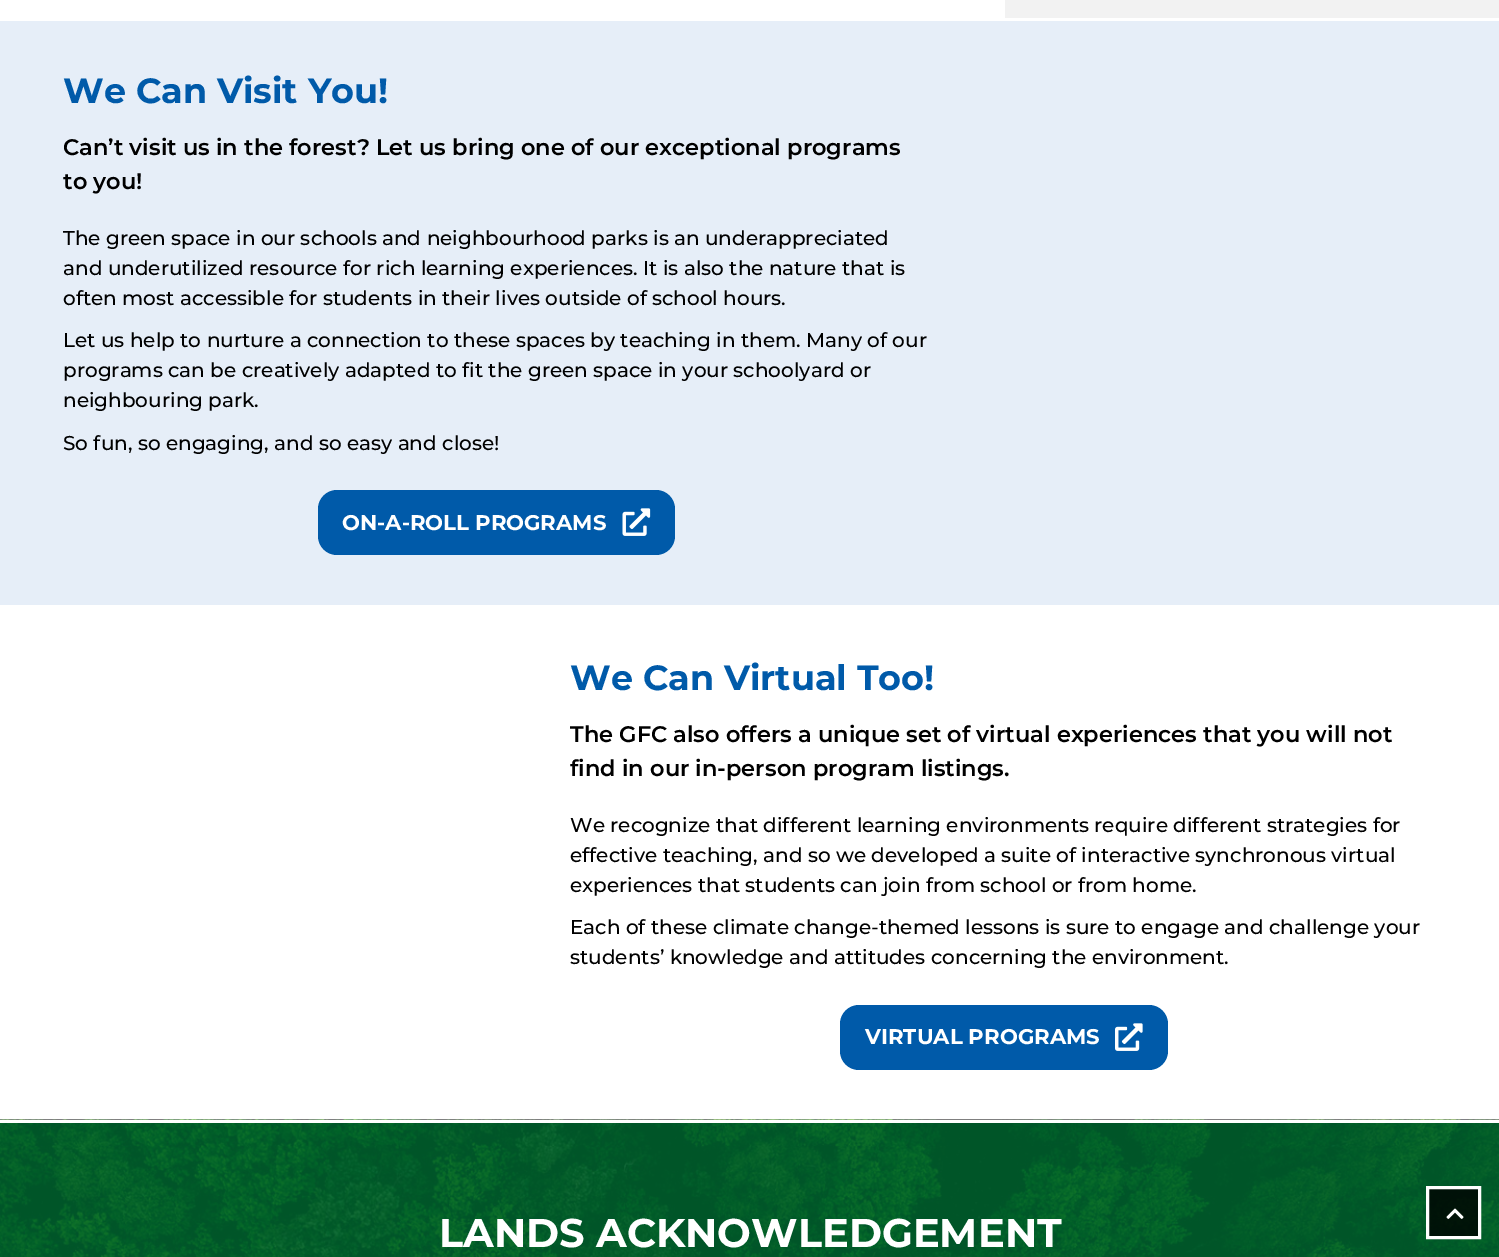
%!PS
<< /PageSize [1499 1257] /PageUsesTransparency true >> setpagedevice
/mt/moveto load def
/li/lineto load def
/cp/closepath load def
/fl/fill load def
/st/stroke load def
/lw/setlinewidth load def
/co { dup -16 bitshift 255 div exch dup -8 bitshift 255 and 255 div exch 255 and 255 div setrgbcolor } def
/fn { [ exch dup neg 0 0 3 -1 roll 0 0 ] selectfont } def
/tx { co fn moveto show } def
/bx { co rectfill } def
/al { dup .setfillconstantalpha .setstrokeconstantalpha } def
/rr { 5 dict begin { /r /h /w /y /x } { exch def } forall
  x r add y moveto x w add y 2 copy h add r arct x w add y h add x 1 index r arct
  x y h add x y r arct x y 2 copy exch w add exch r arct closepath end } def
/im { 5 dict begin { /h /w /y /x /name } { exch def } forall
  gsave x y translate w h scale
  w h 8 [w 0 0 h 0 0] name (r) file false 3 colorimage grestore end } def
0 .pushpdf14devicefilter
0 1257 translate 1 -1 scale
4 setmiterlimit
0 0 1499 1257 16#FFFFFF bx
1005 0 494 18 16#F2F2F2 bx
0 21 1499 584 16#E6EEF8 bx
16#005AA9 co
318 490 357 65 19 rr fl
(media/1.raw) 622 508 29 28 im
840 1005 328 65 19 rr fl
(media/2.raw) 1115 1023 28 28 im
(media/3.raw) 0 1119 1499 138 im
0 1120 1499 3 16#FFFFFF bx
0.8 al
16#000000 co
1427.5 1187.5 mt 1479.5 1187.5 li 1479.5 1237.5 li 1427.5 1237.5 li cp fl
1 al
16#FFFFFF co
3 lw
1427.5 1187.5 mt 1479.5 1187.5 li 1479.5 1237.5 li 1427.5 1237.5 li cp st
(media/4.raw) 1446 1208 18 11 im
(We Can Visit You!) 63 103 /Montserrat-Bold 35 16#005AA9 tx
(Can’t visit us in the forest? Let us bring one of our exceptional programs) 63 155 /Montserrat-SemiBold 22.5 16#000000 tx
(to you!) 63 189 /Montserrat-SemiBold 22.5 16#000000 tx
(The green space in our schools and neighbourhood parks is an underappreciated) 63 245 /Montserrat-Medium 20 16#000000 tx
(and underutilized resource for rich learning experiences. It is also the nature that is) 63 275 /Montserrat-Medium 20 16#000000 tx
(often most accessible for students in their lives outside of school hours.) 63 305 /Montserrat-Medium 20 16#000000 tx
(Let us help to nurture a connection to these spaces by teaching in them. Many of our) 63 347 /Montserrat-Medium 20 16#000000 tx
(programs can be creatively adapted to fit the green space in your schoolyard or) 63 377 /Montserrat-Medium 20 16#000000 tx
(neighbouring park.) 63 407 /Montserrat-Medium 20 16#000000 tx
(So fun, so engaging, and so easy and close!) 63 450 /Montserrat-Medium 20 16#000000 tx
(ON-A-ROLL PROGRAMS) 342 530 /Montserrat-Bold 21.25 16#FFFFFF tx
(We Can Virtual Too!) 570 690 /Montserrat-Bold 35 16#005AA9 tx
(The GFC also offers a unique set of virtual experiences that you will not) 570 742 /Montserrat-SemiBold 22.5 16#000000 tx
(find in our in-person program listings.) 570 776 /Montserrat-SemiBold 22.5 16#000000 tx
(We recognize that different learning environments require different strategies for) 570 832 /Montserrat-Medium 20 16#000000 tx
(effective teaching, and so we developed a suite of interactive synchronous virtual) 570 862 /Montserrat-Medium 20 16#000000 tx
(experiences that students can join from school or from home.) 570 892 /Montserrat-Medium 20 16#000000 tx
(Each of these climate change-themed lessons is sure to engage and challenge your) 570 934 /Montserrat-Medium 20 16#000000 tx
(students’ knowledge and attitudes concerning the environment.) 570 964 /Montserrat-Medium 20 16#000000 tx
(VIRTUAL PROGRAMS) 865 1044 /Montserrat-Bold 21.25 16#FFFFFF tx
(LANDS ACKNOWLEDGEMENT) 439 1247 /Montserrat-Bold 40 16#FFFFFF tx
.poppdf14devicefilter showpage
